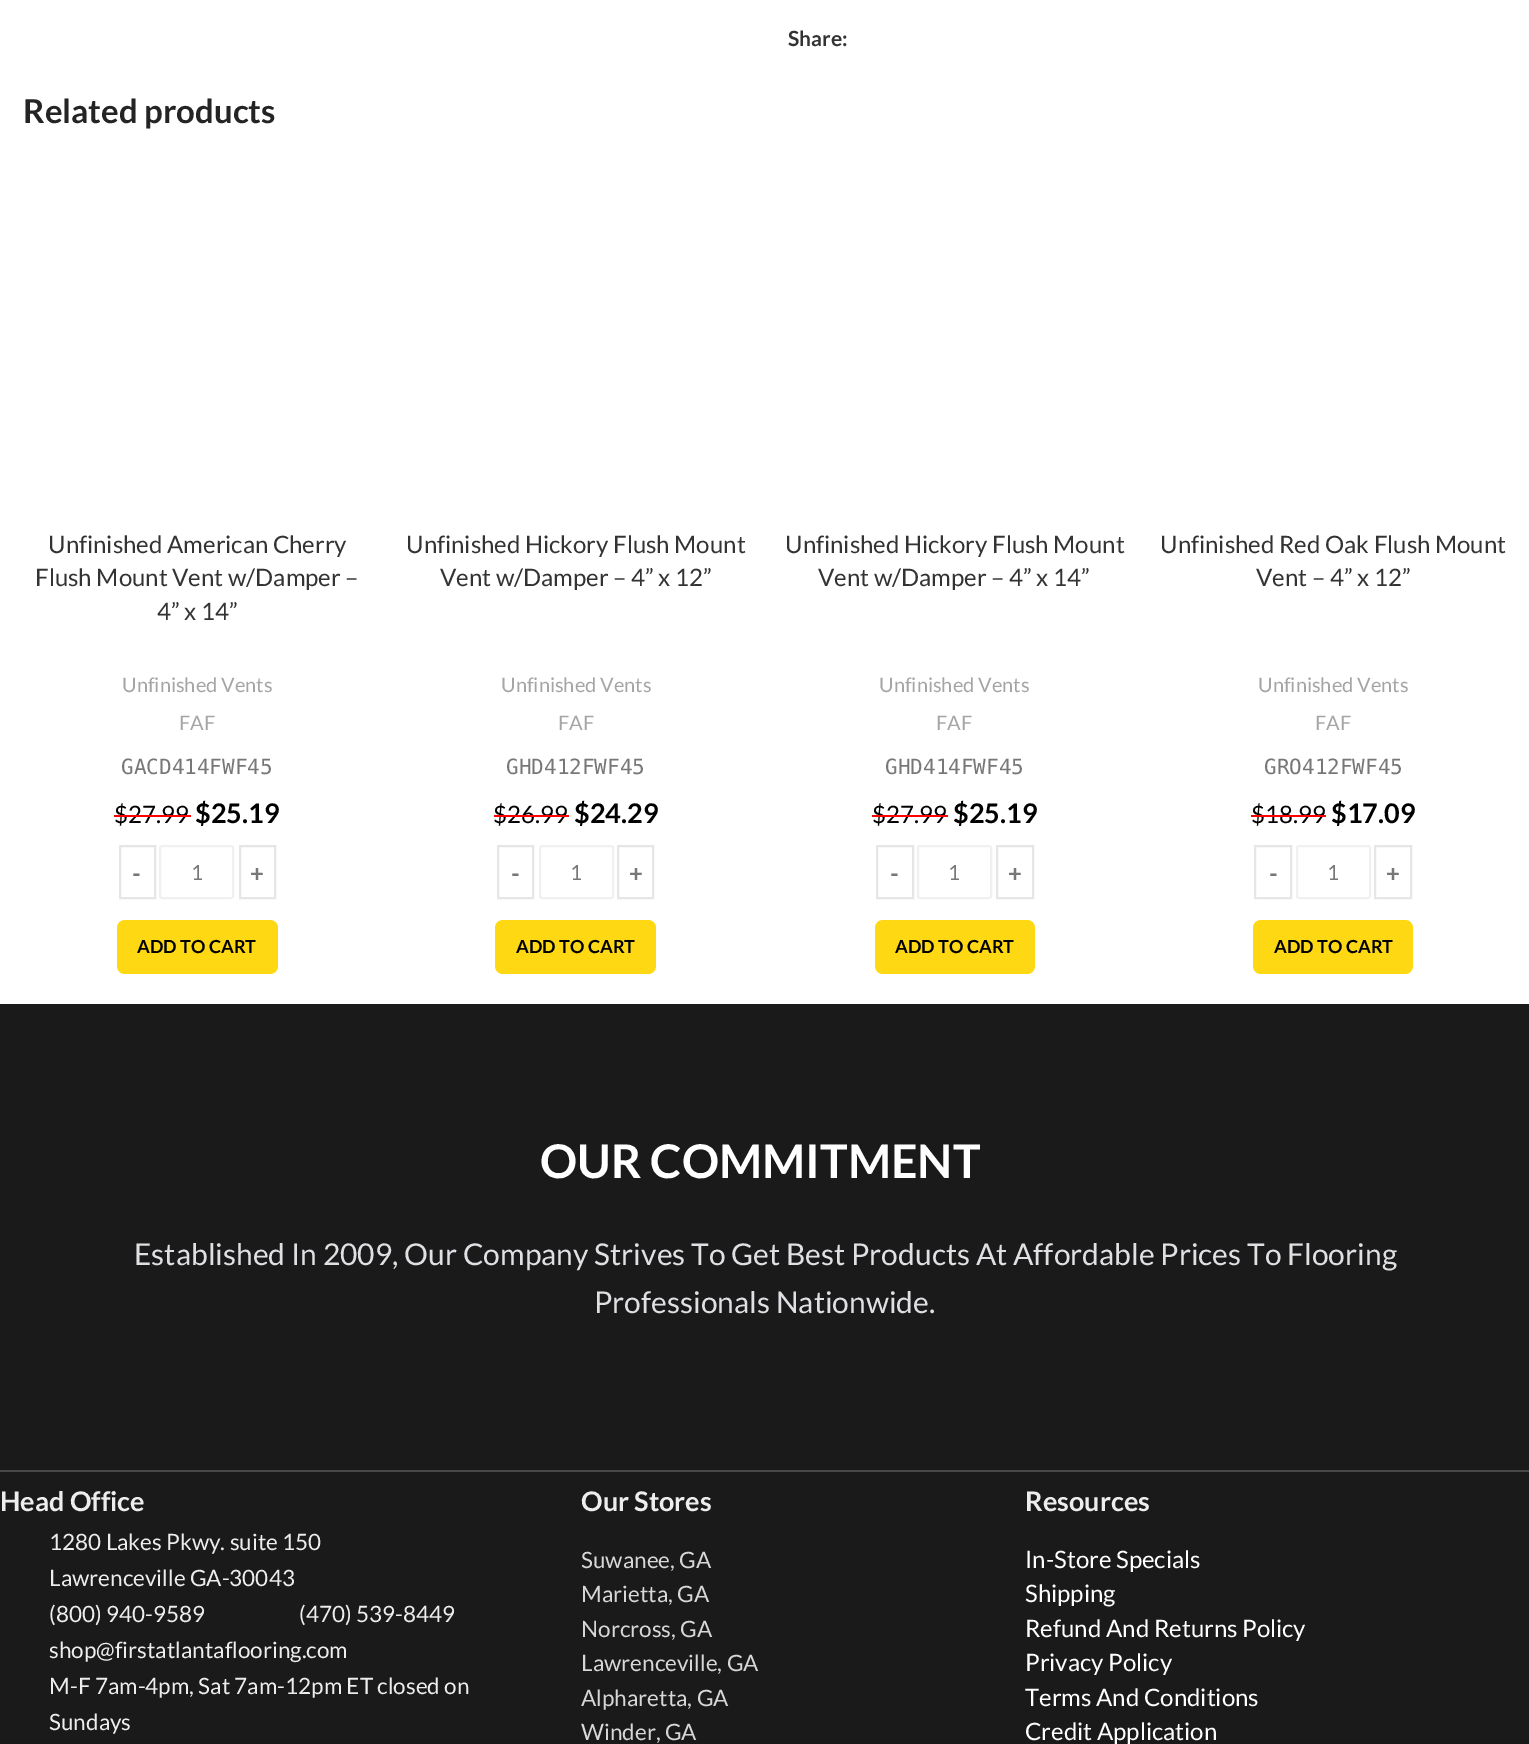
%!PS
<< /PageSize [1529 1744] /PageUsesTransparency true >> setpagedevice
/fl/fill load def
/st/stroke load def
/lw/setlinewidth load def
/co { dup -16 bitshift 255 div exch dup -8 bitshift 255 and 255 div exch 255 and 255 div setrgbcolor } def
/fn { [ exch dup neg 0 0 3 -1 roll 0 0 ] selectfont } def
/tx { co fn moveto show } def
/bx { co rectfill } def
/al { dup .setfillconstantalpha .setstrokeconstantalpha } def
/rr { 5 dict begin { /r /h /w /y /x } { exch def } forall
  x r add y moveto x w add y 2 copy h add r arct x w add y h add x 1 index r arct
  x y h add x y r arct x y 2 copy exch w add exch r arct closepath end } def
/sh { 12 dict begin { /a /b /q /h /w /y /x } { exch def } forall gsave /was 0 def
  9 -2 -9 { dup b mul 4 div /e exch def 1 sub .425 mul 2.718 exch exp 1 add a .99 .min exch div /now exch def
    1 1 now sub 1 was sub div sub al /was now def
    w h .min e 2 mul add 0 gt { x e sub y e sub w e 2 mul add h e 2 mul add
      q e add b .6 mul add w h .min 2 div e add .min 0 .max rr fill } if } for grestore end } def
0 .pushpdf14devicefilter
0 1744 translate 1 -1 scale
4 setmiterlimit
0 0 1529 1744 16#FFFFFF bx
16#E6E6E6 co
2 lw
120 846 35 52 rectstroke
16#F0F0F0 co
160 846 73 52 2 rr st
16#E6E6E6 co
240 846 35 52 rectstroke
16#FFD814 co
117 920 161 54 8 rr fl
16#E6E6E6 co
498 846 35 52 rectstroke
16#F0F0F0 co
540 846 73 52 2 rr st
16#E6E6E6 co
618 846 35 52 rectstroke
16#FFD814 co
495 920 161 54 8 rr fl
16#E6E6E6 co
877 846 36 52 rectstroke
16#F0F0F0 co
918 846 73 52 2 rr st
16#E6E6E6 co
997 846 36 52 rectstroke
16#FFD814 co
875 920 160 54 8 rr fl
16#E6E6E6 co
1255 846 36 52 rectstroke
16#F0F0F0 co
1297 846 73 52 2 rr st
16#E6E6E6 co
1375 846 36 52 rectstroke
16#FFD814 co
1253 920 160 54 8 rr fl
0 1004 1529 740 16#1A1A1A bx
0 1470 1529 2 16#484848 bx
16#000000 co
0 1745 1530 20 0 7 .14 sh
(Share:) 788 46 /Lato-Bold 21 16#333333 tx
(Related products) 23 123 /Lato-Bold 33 16#242424 tx
(Unfinished American Cherry) 48 553 /Lato-Regular 24 16#333333 tx
(Flush Mount Vent w/Damper –) 35 586 /Lato-Regular 24 16#333333 tx
(4” x 14”) 157 620 /Lato-Regular 24 16#333333 tx
(Unfinished Vents) 122 692 /Lato-Regular 20 16#A5A5A5 tx
(FAF) 179 730 /Lato-Regular 20 16#A5A5A5 tx
(GACD414FWF45) 121 774 /DejaVuSansMono-Regular 21 16#777777 tx
($27.99) 114 823 /Lato-Regular 24 16#000000 tx
114 815 77 2 16#FF0000 bx
($25.19) 195 823 /Lato-Bold 27 16#000000 tx
(-) 132 882 /Lato-Bold 24 16#777777 tx
(1) 191 880 /Lato-Regular 21 16#777777 tx
(+) 250 882 /Lato-Bold 24 16#777777 tx
(ADD TO CART) 137 953 /Lato-Bold 18 16#000000 tx
(Unfinished Hickory Flush Mount) 406 553 /Lato-Regular 24 16#333333 tx
(Vent w/Damper – 4” x 12”) 440 586 /Lato-Regular 24 16#333333 tx
(Unfinished Vents) 501 692 /Lato-Regular 20 16#A5A5A5 tx
(FAF) 558 730 /Lato-Regular 20 16#A5A5A5 tx
(GHD412FWF45) 506 774 /DejaVuSansMono-Regular 21 16#777777 tx
($26.99) 493 823 /Lato-Regular 24 16#000000 tx
494 815 75 2 16#FF0000 bx
($24.29) 574 823 /Lato-Bold 27 16#000000 tx
(-) 511 882 /Lato-Bold 24 16#777777 tx
(1) 570 880 /Lato-Regular 21 16#777777 tx
(+) 629 882 /Lato-Bold 24 16#777777 tx
(ADD TO CART) 516 953 /Lato-Bold 18 16#000000 tx
(Unfinished Hickory Flush Mount) 785 553 /Lato-Regular 24 16#333333 tx
(Vent w/Damper – 4” x 14”) 818 586 /Lato-Regular 24 16#333333 tx
(Unfinished Vents) 879 692 /Lato-Regular 20 16#A5A5A5 tx
(FAF) 936 730 /Lato-Regular 20 16#A5A5A5 tx
(GHD414FWF45) 885 774 /DejaVuSansMono-Regular 21 16#777777 tx
($27.99) 872 823 /Lato-Regular 24 16#000000 tx
872 815 76 2 16#FF0000 bx
($25.19) 953 823 /Lato-Bold 27 16#000000 tx
(-) 890 882 /Lato-Bold 24 16#777777 tx
(1) 948 880 /Lato-Regular 21 16#777777 tx
(+) 1008 882 /Lato-Bold 24 16#777777 tx
(ADD TO CART) 895 953 /Lato-Bold 18 16#000000 tx
(Unfinished Red Oak Flush Mount) 1160 553 /Lato-Regular 24 16#333333 tx
(Vent – 4” x 12”) 1256 586 /Lato-Regular 24 16#333333 tx
(Unfinished Vents) 1258 692 /Lato-Regular 20 16#A5A5A5 tx
(FAF) 1315 730 /Lato-Regular 20 16#A5A5A5 tx
(GRO412FWF45) 1264 774 /DejaVuSansMono-Regular 21 16#777777 tx
($18.99) 1251 823 /Lato-Regular 24 16#000000 tx
1251 815 75 2 16#FF0000 bx
($17.09) 1331 823 /Lato-Bold 27 16#000000 tx
(-) 1269 882 /Lato-Bold 24 16#777777 tx
(1) 1327 880 /Lato-Regular 21 16#777777 tx
(+) 1386 882 /Lato-Bold 24 16#777777 tx
(ADD TO CART) 1274 953 /Lato-Bold 18 16#000000 tx
(OUR COMMITMENT) 540 1178 /Lato-Bold 46.5 16#FFFFFF tx
(Established In 2009, Our Company Strives To Get Best Products At Affordable Prices To Flooring) 134 1265 /Lato-Regular 30 16#E0E0E4 tx
(Professionals Nationwide.) 594 1313 /Lato-Regular 30 16#E0E0E4 tx
(Head Office) 0 1511 /Lato-Bold 27 16#EDEDED tx
(1280 Lakes Pkwy. suite 150) 49 1550 /Lato-Regular 22.5 16#EDEDED tx
(Lawrenceville GA-30043) 49 1586 /Lato-Regular 22.5 16#EDEDED tx
(\(800\) 940-9589) 49 1622 /Lato-Regular 22.5 16#EDEDED tx
(\(470\) 539-8449) 299 1622 /Lato-Regular 22.5 16#EDEDED tx
(shop@firstatlantaflooring.com) 49 1658 /Lato-Regular 22.5 16#EDEDED tx
(M-F 7am-4pm, Sat 7am-12pm ET closed on) 49 1694 /Lato-Regular 22.5 16#EDEDED tx
(Sundays) 49 1730 /Lato-Regular 22.5 16#EDEDED tx
(Our Stores) 581 1511 /Lato-Bold 27 16#EDEDED tx
(Suwanee, GA) 581 1568 /Lato-Regular 22.5 16#D7D7D9 tx
(Marietta, GA) 581 1602 /Lato-Regular 22.5 16#D7D7D9 tx
(Norcross, GA) 581 1637 /Lato-Regular 22.5 16#D7D7D9 tx
(Lawrenceville, GA) 581 1671 /Lato-Regular 22.5 16#D7D7D9 tx
(Alpharetta, GA) 581 1706 /Lato-Regular 22.5 16#D7D7D9 tx
(Winder, GA) 581 1740 /Lato-Regular 22.5 16#D7D7D9 tx
(Resources) 1025 1511 /Lato-Bold 27 16#EDEDED tx
(In-Store Specials) 1025 1568 /Lato-Regular 24 16#FFFFFF tx
(Shipping) 1025 1602 /Lato-Regular 24 16#FFFFFF tx
(Refund And Returns Policy) 1025 1637 /Lato-Regular 24 16#FFFFFF tx
(Privacy Policy) 1025 1671 /Lato-Regular 24 16#FFFFFF tx
(Terms And Conditions) 1025 1706 /Lato-Regular 24 16#FFFFFF tx
(Credit Application) 1025 1740 /Lato-Regular 24 16#FFFFFF tx
.poppdf14devicefilter showpage
